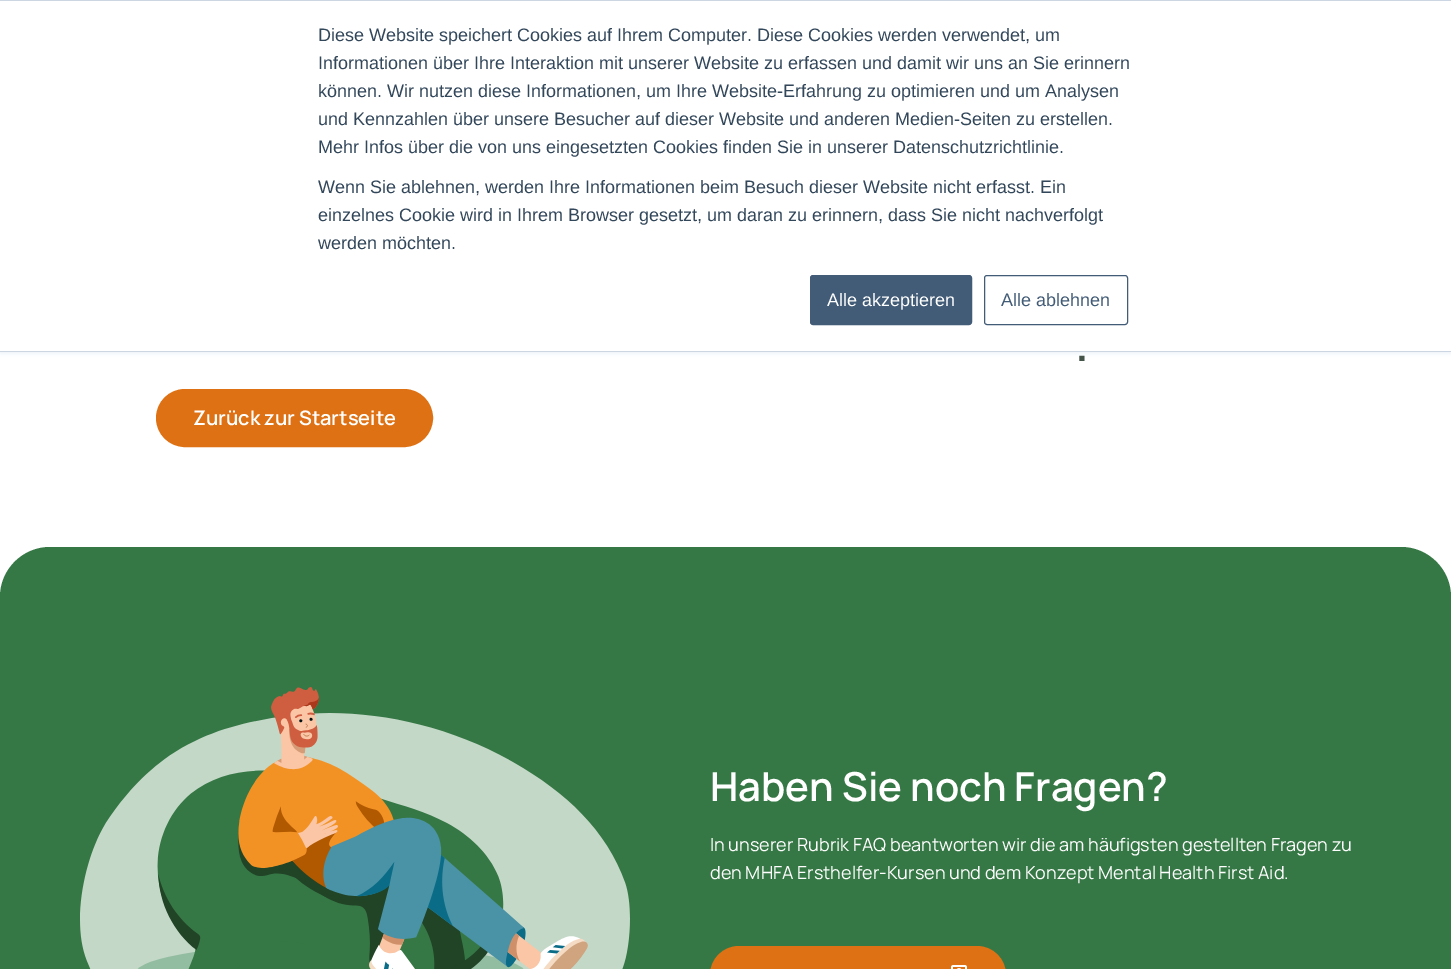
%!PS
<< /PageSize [1451 969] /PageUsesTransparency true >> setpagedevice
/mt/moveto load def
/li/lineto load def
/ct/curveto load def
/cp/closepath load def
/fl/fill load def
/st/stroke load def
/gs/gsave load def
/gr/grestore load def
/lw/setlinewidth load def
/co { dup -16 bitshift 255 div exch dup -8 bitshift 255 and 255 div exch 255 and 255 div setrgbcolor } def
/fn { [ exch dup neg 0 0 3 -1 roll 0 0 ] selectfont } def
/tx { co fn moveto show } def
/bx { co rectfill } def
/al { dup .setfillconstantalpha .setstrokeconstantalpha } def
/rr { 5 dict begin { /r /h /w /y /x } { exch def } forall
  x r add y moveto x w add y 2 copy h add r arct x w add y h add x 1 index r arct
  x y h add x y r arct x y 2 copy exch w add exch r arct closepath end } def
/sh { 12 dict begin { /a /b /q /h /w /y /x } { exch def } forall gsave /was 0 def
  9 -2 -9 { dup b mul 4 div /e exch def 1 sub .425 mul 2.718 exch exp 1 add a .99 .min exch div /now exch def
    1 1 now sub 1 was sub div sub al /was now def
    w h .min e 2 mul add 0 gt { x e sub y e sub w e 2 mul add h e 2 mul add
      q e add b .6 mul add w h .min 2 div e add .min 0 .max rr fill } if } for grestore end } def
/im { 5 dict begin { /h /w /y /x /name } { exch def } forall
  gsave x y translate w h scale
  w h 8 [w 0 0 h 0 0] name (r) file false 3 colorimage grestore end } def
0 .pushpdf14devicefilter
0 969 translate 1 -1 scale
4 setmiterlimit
0 0 1451 969 16#FFFFFF bx
16#EAF0F6 co
0 1 1451 352 0 2.5 1 sh
0 1 1451 350 16#FFFFFF bx
0 0 1451 1 16#CBD6E2 bx
0 351 1451 1 16#CBD6E2 bx
16#425B76 co
810.5 275.5 161 49 2.5 rr gs fl gr
st
984.5 275.5 143 49 2.5 rr st
16#DD7113 co
157 390 275 56 28 rr gs fl gr
2 lw
st
16#367845 co
50 547 mt 1401 547 li 1428.5 547 1451 569.5 1451 597 ct 1451 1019 li 0 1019 li 0 597 li 0 569.5 22.5 547 50 547 ct cp fl
(media/1.raw) 80 687 550 282 im
16#DD7113 co
711 947 294 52 28 rr gs fl gr
st
(media/2.raw) 951 965 16 4 im
(Diese Website speichert Cookies auf Ihrem Computer. Diese Cookies werden verwendet, um) 318 41 /LiberationSans-Regular 18 16#33475B tx
(Informationen über Ihre Interaktion mit unserer Website zu erfassen und damit wir uns an Sie erinnern) 318 69 /LiberationSans-Regular 18 16#33475B tx
(können. Wir nutzen diese Informationen, um Ihre Website-Erfahrung zu optimieren und um Analysen) 318 97 /LiberationSans-Regular 18 16#33475B tx
(und Kennzahlen über unsere Besucher auf dieser Website und anderen Medien-Seiten zu erstellen.) 318 125 /LiberationSans-Regular 18 16#33475B tx
(Mehr Infos über die von uns eingesetzten Cookies finden Sie in unserer Datenschutzrichtlinie.) 318 153 /LiberationSans-Regular 18 16#33475B tx
(Wenn Sie ablehnen, werden Ihre Informationen beim Besuch dieser Website nicht erfasst. Ein) 318 193 /LiberationSans-Regular 18 16#33475B tx
(einzelnes Cookie wird in Ihrem Browser gesetzt, um daran zu erinnern, dass Sie nicht nachverfolgt) 318 221 /LiberationSans-Regular 18 16#33475B tx
(werden möchten.) 318 249 /LiberationSans-Regular 18 16#33475B tx
(Alle akzeptieren) 827 306 /LiberationSans-Regular 18 16#FFFFFF tx
(Alle ablehnen) 1001 306 /LiberationSans-Regular 18 16#425B76 tx
(.) 1075 361 /Manrope-SemiBold 48 16#455448 tx
(Zurück zur Startseite) 193 425 /Manrope-SemiBold 20 16#FFFFFF tx
(Haben Sie noch Fragen?) 710 801 /Manrope-SemiBold 40 16#FFFFFF tx
(In unserer Rubrik FAQ beantworten wir die am häufigsten gestellten Fragen zu) 710 851 /Manrope-Regular 18 16#FFFFFF tx
(den MHFA Ersthelfer-Kursen und dem Konzept Mental Health First Aid.) 710 879 /Manrope-Regular 18 16#FFFFFF tx
.poppdf14devicefilter showpage
